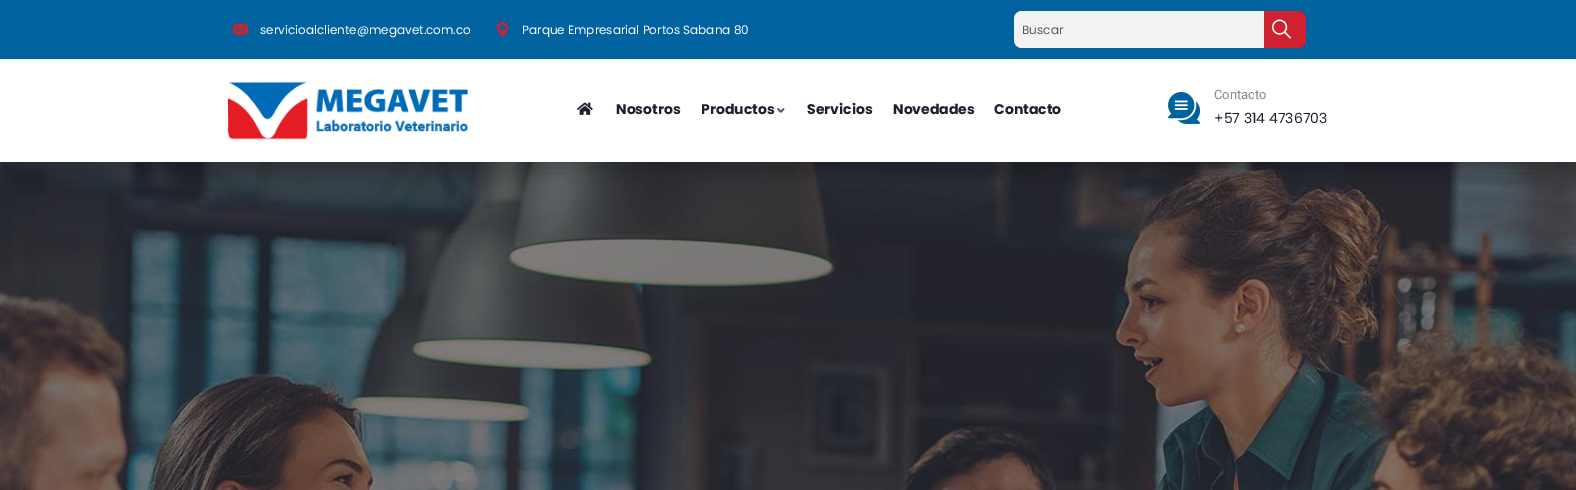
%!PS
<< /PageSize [1576 490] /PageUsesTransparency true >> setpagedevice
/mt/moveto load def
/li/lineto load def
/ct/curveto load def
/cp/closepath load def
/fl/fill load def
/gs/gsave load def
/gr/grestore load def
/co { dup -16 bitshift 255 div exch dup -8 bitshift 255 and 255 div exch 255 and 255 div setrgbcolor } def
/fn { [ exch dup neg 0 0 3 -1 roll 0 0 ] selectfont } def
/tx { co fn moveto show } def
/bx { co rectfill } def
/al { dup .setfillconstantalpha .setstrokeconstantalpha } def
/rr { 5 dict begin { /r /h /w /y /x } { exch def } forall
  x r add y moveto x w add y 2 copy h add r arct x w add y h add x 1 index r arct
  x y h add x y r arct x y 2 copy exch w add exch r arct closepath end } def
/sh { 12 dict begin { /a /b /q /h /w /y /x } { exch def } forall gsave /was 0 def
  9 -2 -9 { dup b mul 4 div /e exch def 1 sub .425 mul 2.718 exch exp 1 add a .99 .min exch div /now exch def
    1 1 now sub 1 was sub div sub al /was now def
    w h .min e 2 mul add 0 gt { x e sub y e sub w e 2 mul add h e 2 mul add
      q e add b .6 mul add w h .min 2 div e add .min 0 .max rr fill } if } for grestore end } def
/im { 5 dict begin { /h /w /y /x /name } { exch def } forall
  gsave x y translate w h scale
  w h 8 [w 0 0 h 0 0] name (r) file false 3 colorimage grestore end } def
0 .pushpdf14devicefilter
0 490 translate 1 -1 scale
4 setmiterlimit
0 0 1576 490 16#FFFFFF bx
(media/8.raw) 0 162 1576 328 im
gs
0 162 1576 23 rectclip
16#000000 co
0 10 1576 162 0 10 .2 sh
gr
0 0 1576 59 16#00639F bx
(media/1.raw) 233 23 15 13 im
(media/2.raw) 496 21 13 16 im
16#F3F3F3 co
1022 11 mt 1264 11 li 1264 48 li 1022 48 li 1017.5 48 1014 44.5 1014 40 ct 1014 19 li 1014 14.5 1017.5 11 1022 11 ct cp fl
16#CE2231 co
1264 11 mt 1298 11 li 1302.5 11 1306 14.5 1306 19 ct 1306 40 li 1306 44.5 1302.5 48 1298 48 ct 1264 48 li cp fl
(media/3.raw) 1272 19 20 20 im
(media/4.raw) 228 81 240 59 im
(media/5.raw) 577 102 16 13 im
(media/6.raw) 777 108 8 5 im
(media/7.raw) 1168 92 32 32 im
(servicioalcliente@megavet.com.co) 260 34 /Poppins-Regular 12 16#FFFFFF tx
(Parque Empresarial Portos Sabana 80) 522 34 /Poppins-Regular 12 16#FFFFFF tx
(Buscar) 1022 34 /Poppins-Regular 12 16#515962 tx
(Nosotros) 616 114 /Poppins-Bold 14 16#1B1F2E tx
(Productos) 701 114 /Poppins-Bold 14 16#1B1F2E tx
(Servicios) 807 114 /Poppins-Bold 14 16#1B1F2E tx
(Novedades) 893 114 /Poppins-Bold 14 16#1B1F2E tx
(Contacto) 994 114 /Poppins-Bold 14 16#1B1F2E tx
(Contacto) 1214 99 /Roboto-Regular 13 16#838694 tx
(+57 314 4736703) 1214 123 /Poppins-Regular 14 16#1B1F2E tx
.poppdf14devicefilter showpage
